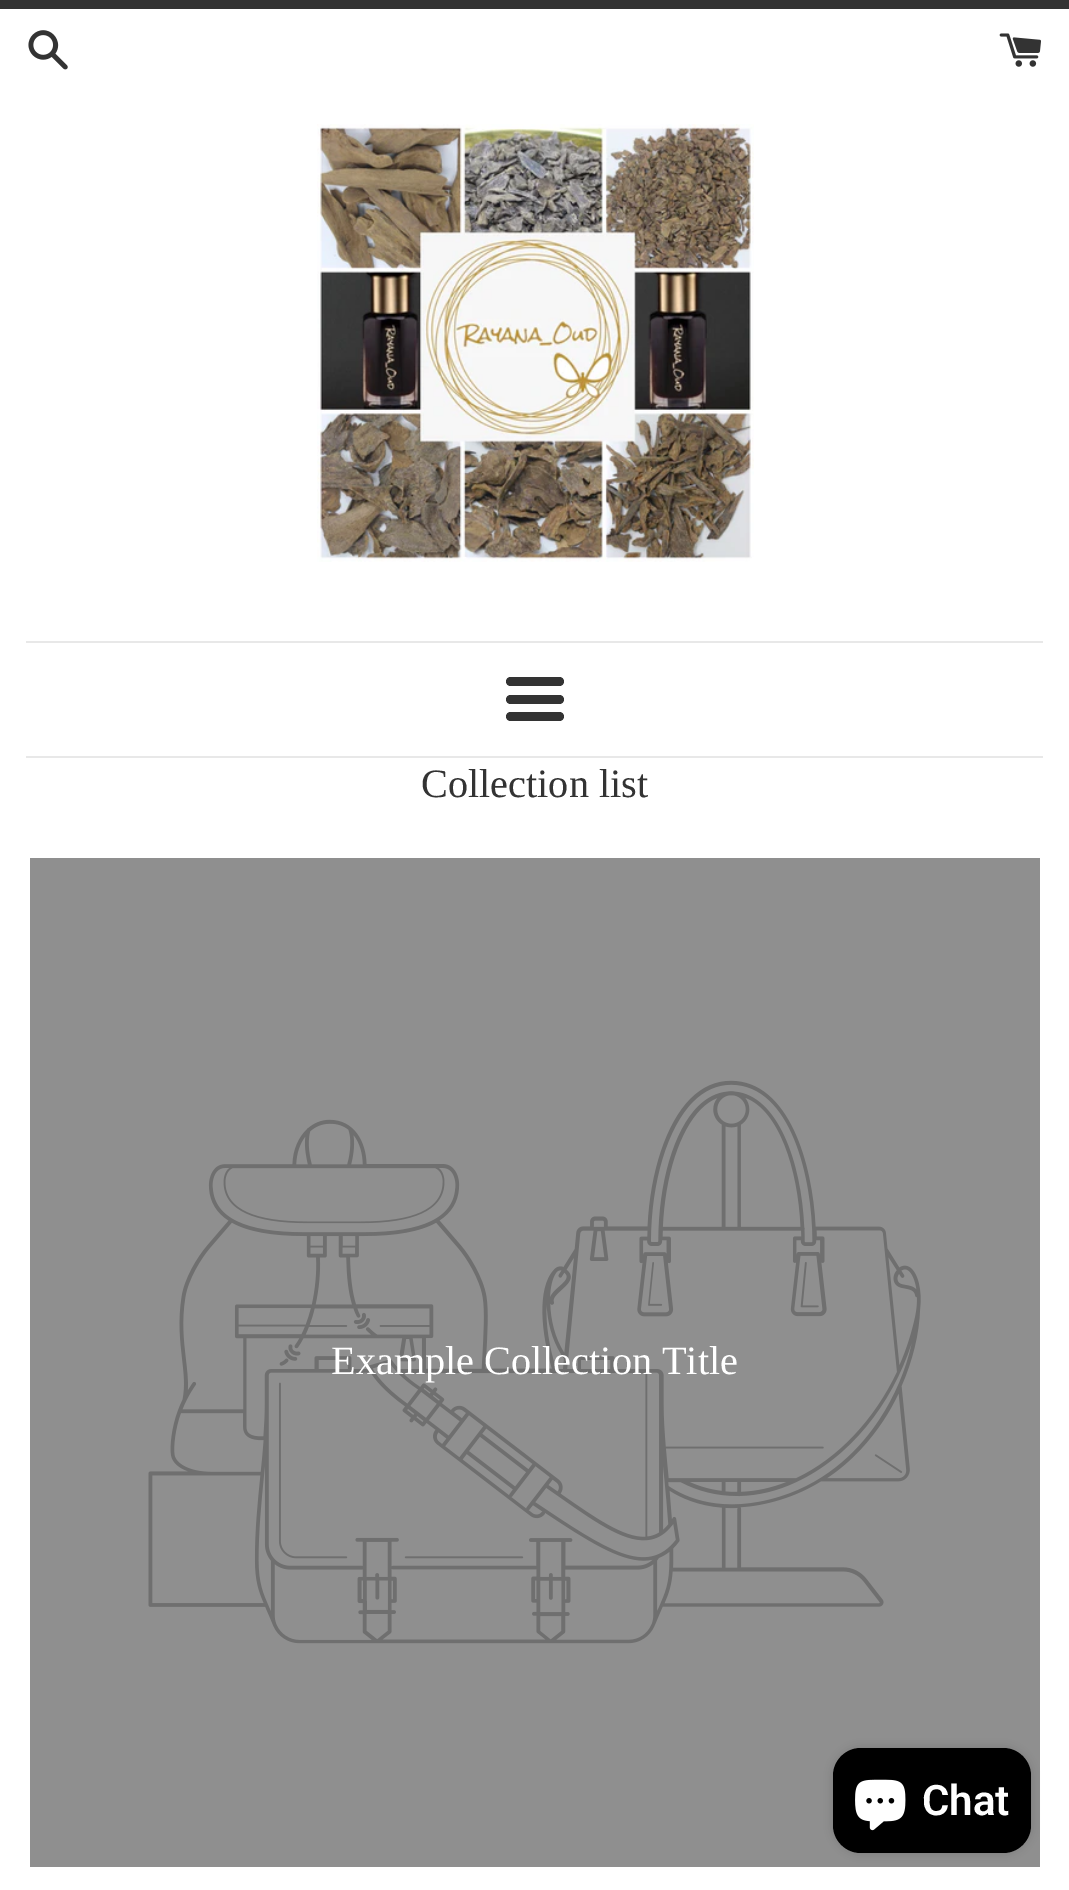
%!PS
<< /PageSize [1069 1890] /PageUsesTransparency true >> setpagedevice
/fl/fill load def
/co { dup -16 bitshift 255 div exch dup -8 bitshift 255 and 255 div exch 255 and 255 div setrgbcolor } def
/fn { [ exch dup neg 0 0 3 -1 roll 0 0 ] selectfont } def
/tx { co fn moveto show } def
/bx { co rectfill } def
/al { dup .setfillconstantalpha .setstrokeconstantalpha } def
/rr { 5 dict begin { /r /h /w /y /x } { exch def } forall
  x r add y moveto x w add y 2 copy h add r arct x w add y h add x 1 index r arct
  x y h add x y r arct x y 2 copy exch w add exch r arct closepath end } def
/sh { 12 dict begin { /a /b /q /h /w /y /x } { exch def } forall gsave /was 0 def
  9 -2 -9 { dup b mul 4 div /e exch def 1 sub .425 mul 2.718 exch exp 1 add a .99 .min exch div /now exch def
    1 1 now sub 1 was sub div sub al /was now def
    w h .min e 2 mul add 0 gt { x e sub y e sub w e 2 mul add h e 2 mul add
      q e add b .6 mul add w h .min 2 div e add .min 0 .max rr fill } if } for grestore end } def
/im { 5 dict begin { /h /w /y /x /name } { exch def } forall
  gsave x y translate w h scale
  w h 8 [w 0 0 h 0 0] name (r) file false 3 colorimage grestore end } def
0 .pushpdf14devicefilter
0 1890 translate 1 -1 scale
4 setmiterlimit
0 0 1069 1890 16#FFFFFF bx
0 0 1069 9 16#333333 bx
(media/1.raw) 28 30 40 40 im
(media/2.raw) 999 33 42 34 im
(media/3.raw) 317 124 437 438 im
26 641 1017 2 16#E8E8E8 bx
16#333333 co
506 677 58 9 4.5 rr fl
506 695 58 9 4.5 rr fl
506 712 58 9 4.5 rr fl
26 756 1017 2 16#E8E8E8 bx
30 858 1010 1009 16#8F8F8F bx
(media/4.raw) 148 1080 773 564 im
16#000000 co
833 1748 198 105 28 4.5 .15 sh
833 1748 198 105 28 rr fl
(media/5.raw) 855 1779 51 52 im
(Collection list) 421 797 /LiberationSerif-Regular 40.25 16#333333 tx
(Example Collection Title) 331 1374 /LiberationSerif-Regular 40.25 16#FFFFFF tx
(Chat) 922 1815 /Roboto-SemiBold 42 16#FFFFFF tx
.poppdf14devicefilter showpage
